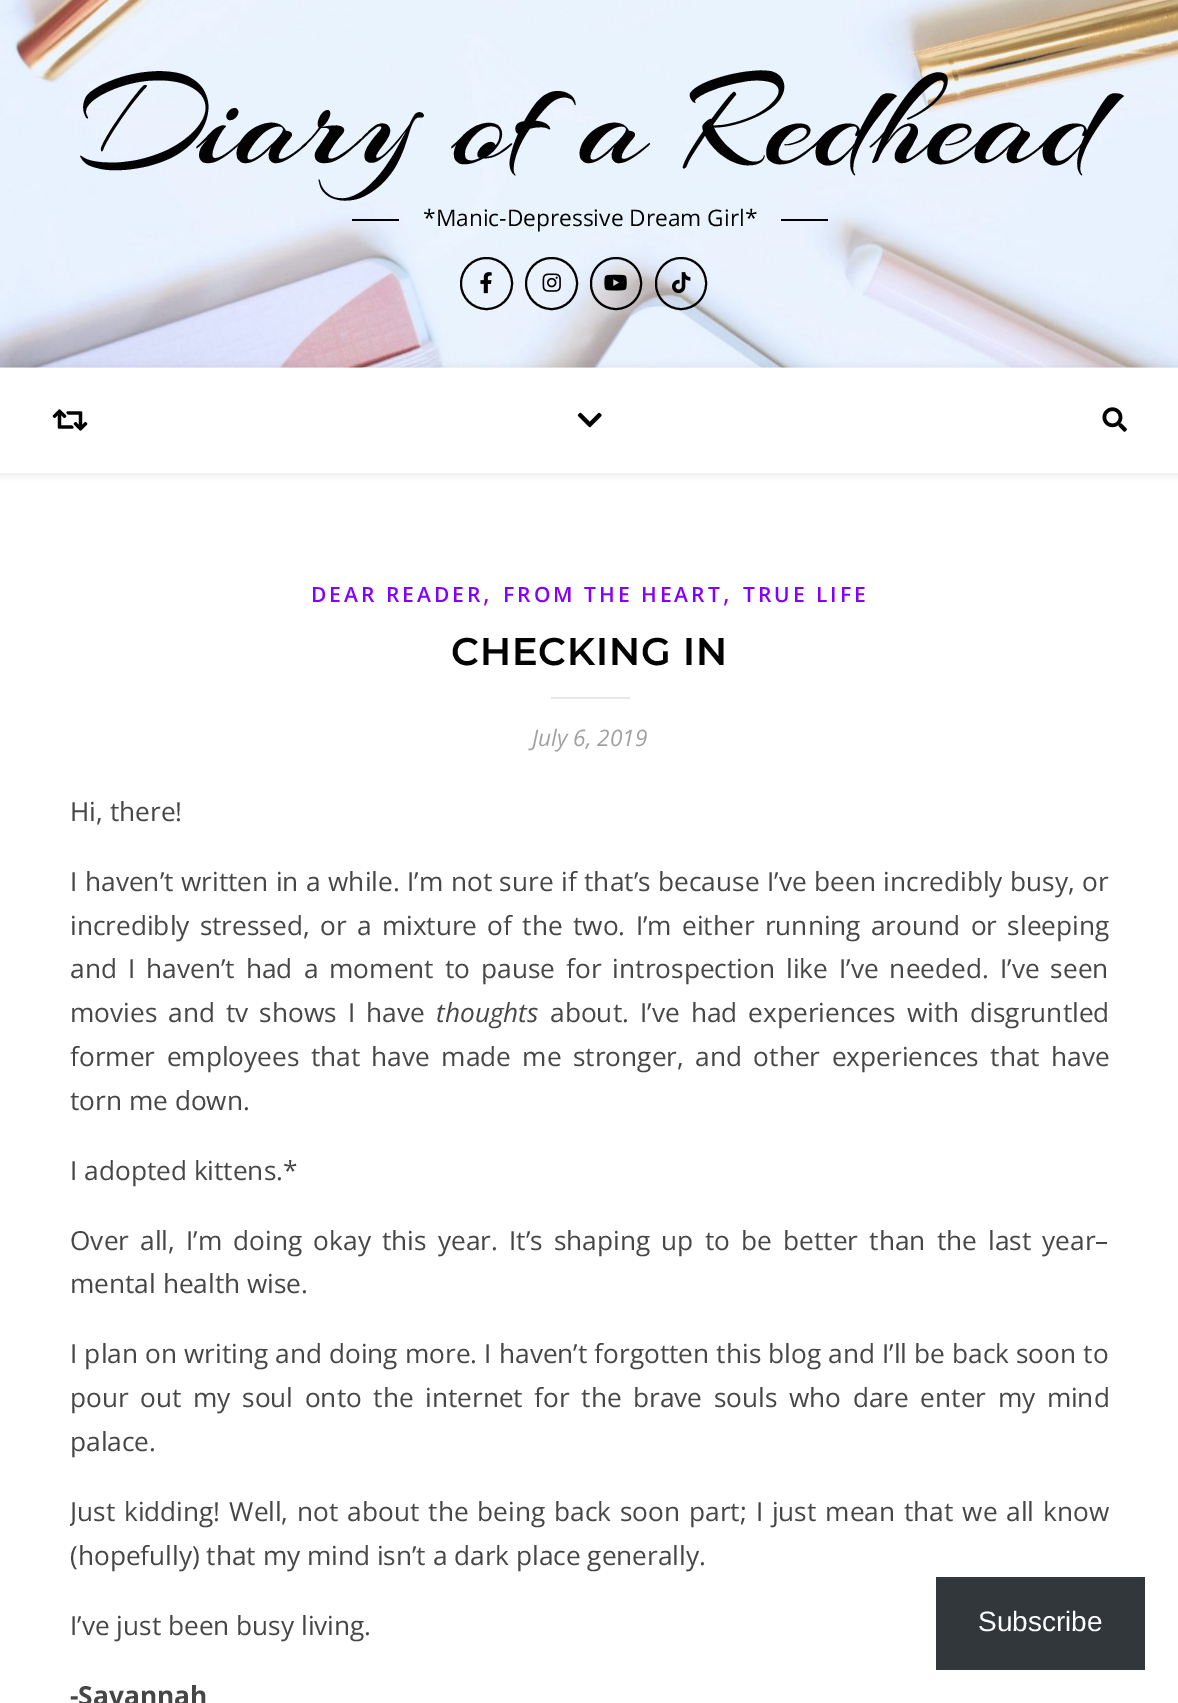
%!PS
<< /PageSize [1178 1703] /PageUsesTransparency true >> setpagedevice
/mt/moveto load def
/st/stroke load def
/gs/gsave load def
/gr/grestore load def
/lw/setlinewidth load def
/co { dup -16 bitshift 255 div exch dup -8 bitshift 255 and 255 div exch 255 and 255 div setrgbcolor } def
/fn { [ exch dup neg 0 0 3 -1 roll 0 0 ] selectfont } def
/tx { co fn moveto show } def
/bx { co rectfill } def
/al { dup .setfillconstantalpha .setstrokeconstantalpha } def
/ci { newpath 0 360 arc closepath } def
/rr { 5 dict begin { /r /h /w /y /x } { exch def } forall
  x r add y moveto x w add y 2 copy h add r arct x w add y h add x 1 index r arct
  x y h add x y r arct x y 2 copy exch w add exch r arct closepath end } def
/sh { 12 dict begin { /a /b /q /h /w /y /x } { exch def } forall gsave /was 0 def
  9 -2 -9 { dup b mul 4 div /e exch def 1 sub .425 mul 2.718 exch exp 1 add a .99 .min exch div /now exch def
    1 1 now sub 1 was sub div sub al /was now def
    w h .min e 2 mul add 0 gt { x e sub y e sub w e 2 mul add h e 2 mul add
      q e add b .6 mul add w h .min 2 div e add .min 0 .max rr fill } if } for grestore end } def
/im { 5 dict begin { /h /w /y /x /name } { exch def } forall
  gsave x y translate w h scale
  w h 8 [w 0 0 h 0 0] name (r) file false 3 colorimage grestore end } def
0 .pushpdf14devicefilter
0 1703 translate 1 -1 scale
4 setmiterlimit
0 0 1178 1703 16#FFFFFF bx
(media/1.raw) 0 0 1178 368 im
352 219 47 2 16#000000 bx
781 219 47 2 16#000000 bx
2 lw
486.5 283.5 25.5 ci st
(media/2.raw) 480 272 12 22 im
551.5 283.5 25.5 ci st
(media/3.raw) 542 273 19 19 im
591 258 50 51 25 rr st
(media/4.raw) 604 274 23 17 im
656 258 50 51 25 rr st
(media/5.raw) 672 272 19 22 im
0 369 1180 105 0 4.5 .1 sh
0 368 1178 105 16#FFFFFF bx
(media/6.raw) 52 409 36 22 im
(media/7.raw) 577 412 25 16 im
(media/8.raw) 1102 407 25 25 im
551 697 79 2 16#E8E8E8 bx
936 1577 209 93 16#32373C bx
(Diary of a Redhead) 81 163 /Arizonia-Regular 140 16#030303 tx
(*Manic-Depressive Dream Girl*) 423 226 /OpenSans-Regular 22.75 16#030303 tx
/OpenSans-SemiBold 21 fn
16#8300FF co
311 602 mt 3 0 (DEAR READER) ashow
(,) 483 602 /OpenSans-Regular 26.25 16#8300FF tx
/OpenSans-SemiBold 21 fn
503 602 mt 3 0 (FROM THE HEART) ashow
(,) 723 602 /OpenSans-Regular 26.25 16#8300FF tx
/OpenSans-SemiBold 21 fn
743 602 mt 3 0 (TRUE LIFE) ashow
/Montserrat-SemiBold 38.5 fn
16#030303 co
451 665 mt .9 0 (CHECKING IN) ashow
(July 6, 2019) 532 746 /OpenSans-Italic 22.75 16#A1A1A1 tx
(Hi, there!) 70 821 /OpenSans-Regular 26.25 16#464646 tx
70 891 mt .75 0 32 (I haven’t written in a while. I’m not sure if that’s because I’ve been incredibly busy, or) widthshow
70 935 mt 3.5 0 32 (incredibly stressed, or a mixture of the two. I’m either running around or sleeping) widthshow
70 978 mt 4.25 0 32 (and I haven’t had a moment to pause for introspection like I’ve needed. I’ve seen) widthshow
70 1022 mt 4.25 0 32 (movies and tv shows I have) widthshow
(thoughts) 436 1022 /OpenSans-Italic 26.25 16#464646 tx
/OpenSans-Regular 26.25 fn
550 1022 mt 4.25 0 32 (about. I’ve had experiences with disgruntled) widthshow
70 1066 mt 4.6 0 32 (former employees that have made me stronger, and other experiences that have) widthshow
(torn me down.) 70 1110 /OpenSans-Regular 26.25 16#464646 tx
(I adopted kittens.*) 70 1180 /OpenSans-Regular 26.25 16#464646 tx
70 1250 mt 4.4 0 32 (Over all, I’m doing okay this year. It’s shaping up to be better than the last year–) widthshow
(mental health wise.) 70 1293 /OpenSans-Regular 26.25 16#464646 tx
70 1363 mt .3 0 32 (I plan on writing and doing more. I haven’t forgotten this blog and I’ll be back soon to) widthshow
70 1407 mt 4.75 0 32 (pour out my soul onto the internet for the brave souls who dare enter my mind) widthshow
(palace.) 70 1451 /OpenSans-Regular 26.25 16#464646 tx
gs
70 789 1040 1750 rectclip
70 1521 mt 2.1 0 32 (Just kidding! Well, not about the being back soon part; I just mean that we all know) widthshow
gr
(\(hopefully\) that my mind isn’t a dark place generally.) 70 1565 /OpenSans-Regular 26.25 16#464646 tx
(I’ve just been busy living.) 70 1635 /OpenSans-Regular 26.25 16#464646 tx
(-Savannah) 70 1705 /OpenSans-Bold 26.25 16#464646 tx
(Subscribe) 978 1631 /LiberationSans-Regular 28 16#FFFFFF tx
.poppdf14devicefilter showpage
